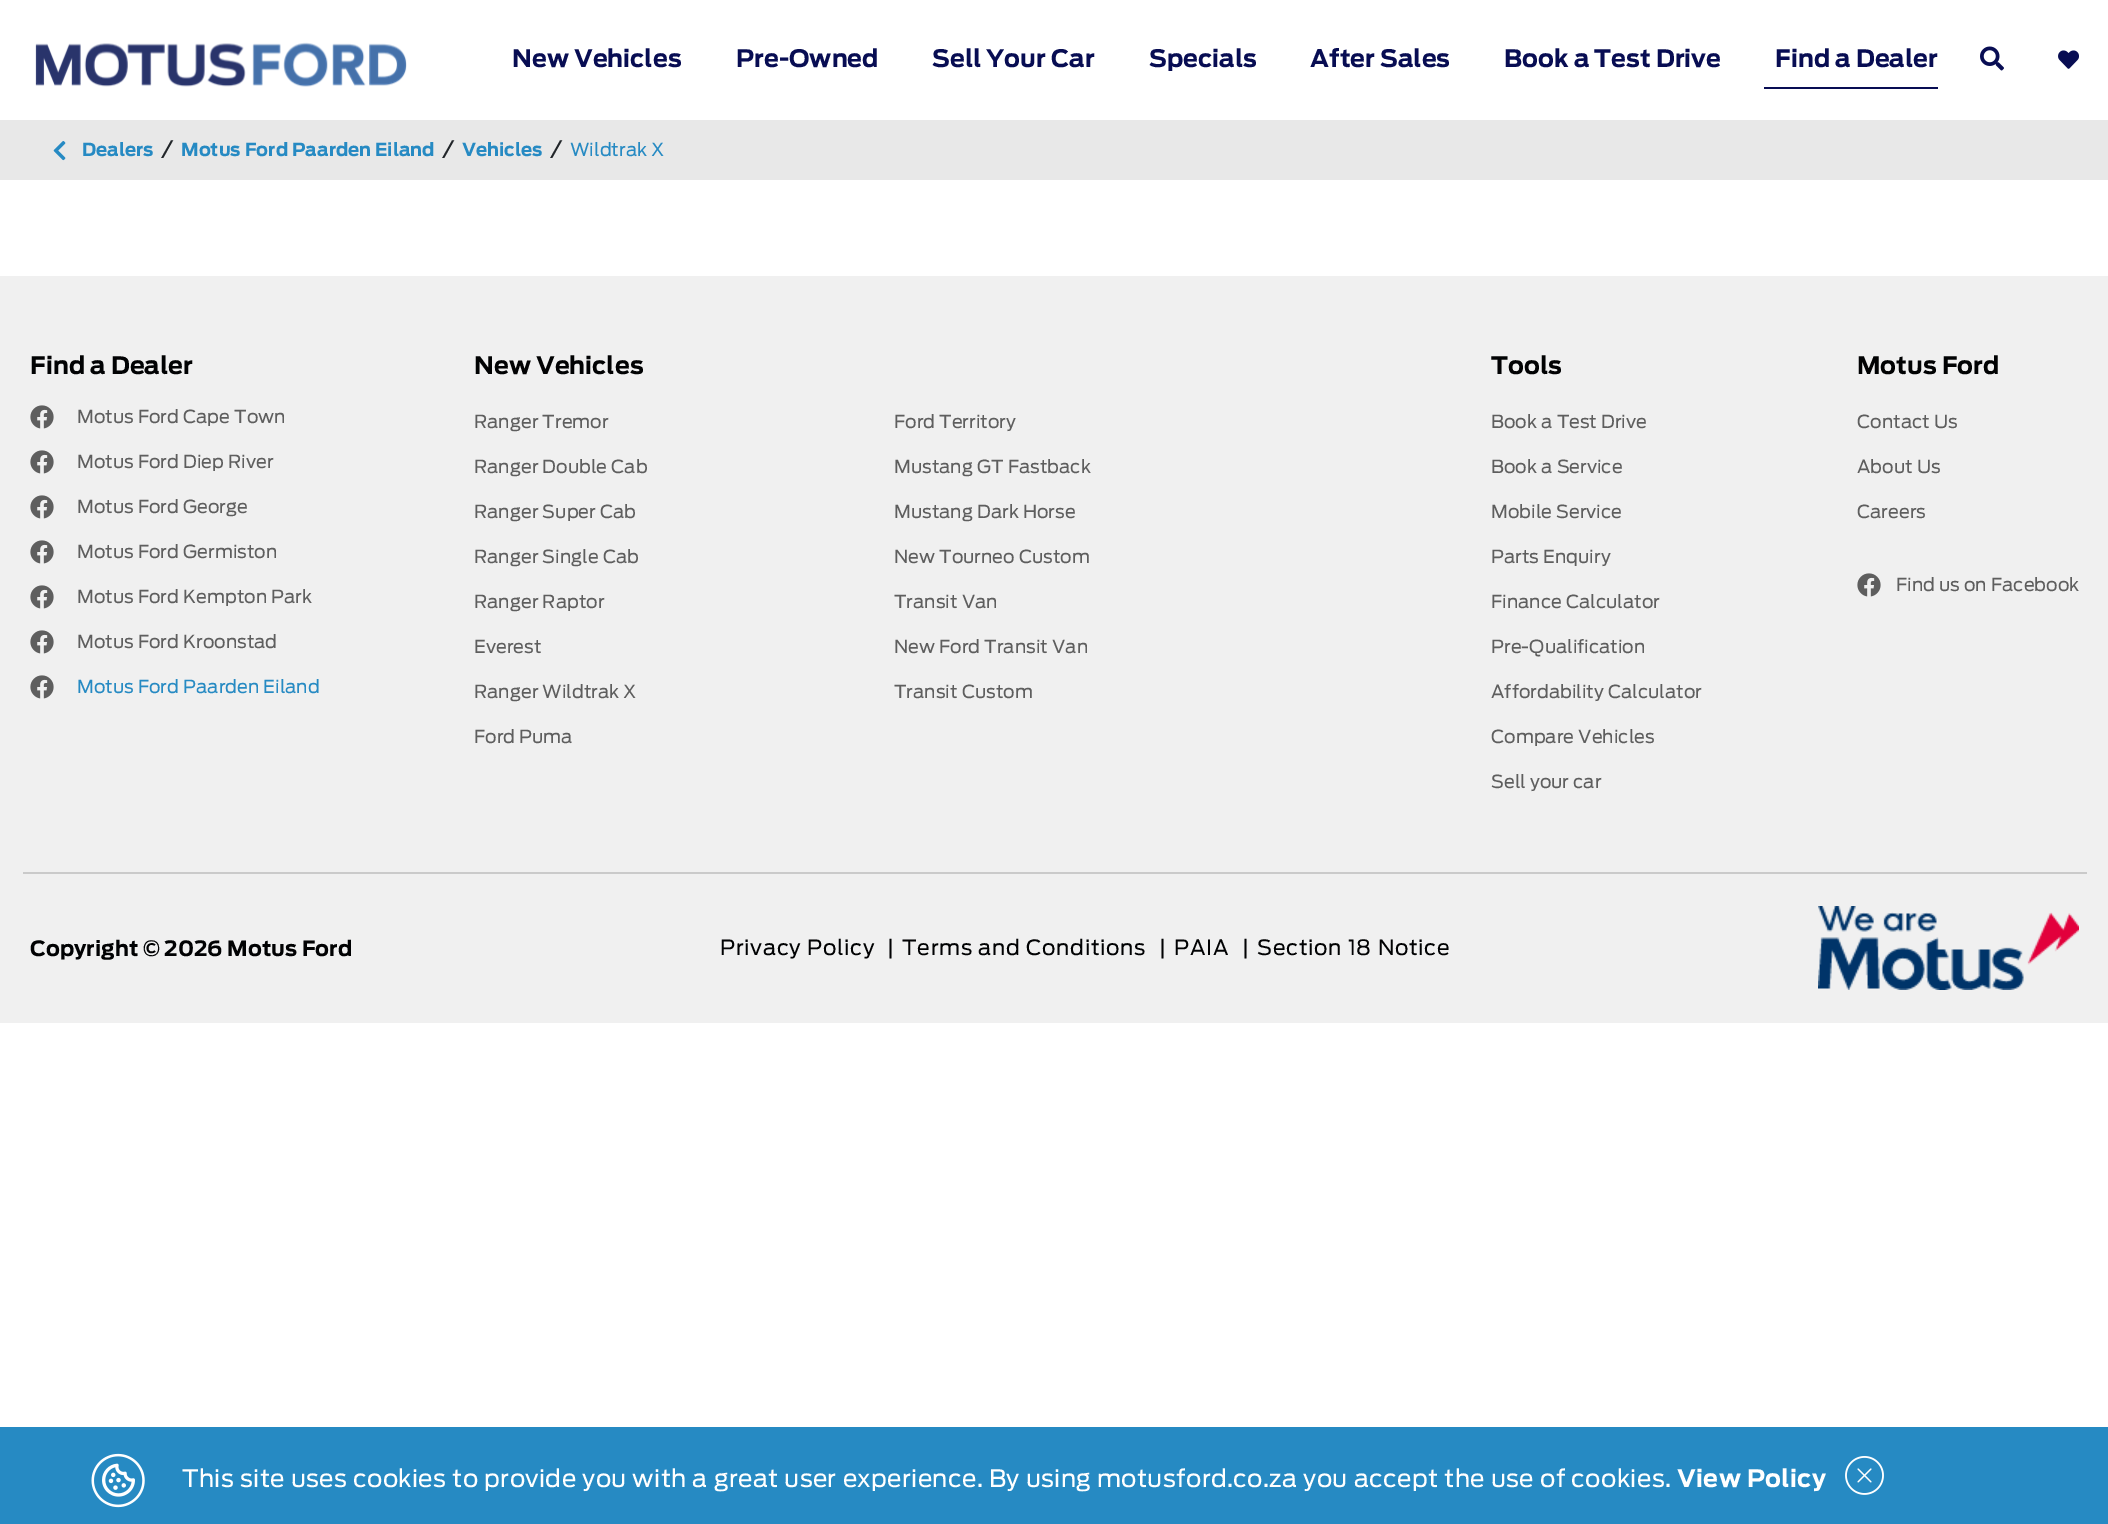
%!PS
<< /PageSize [2108 1524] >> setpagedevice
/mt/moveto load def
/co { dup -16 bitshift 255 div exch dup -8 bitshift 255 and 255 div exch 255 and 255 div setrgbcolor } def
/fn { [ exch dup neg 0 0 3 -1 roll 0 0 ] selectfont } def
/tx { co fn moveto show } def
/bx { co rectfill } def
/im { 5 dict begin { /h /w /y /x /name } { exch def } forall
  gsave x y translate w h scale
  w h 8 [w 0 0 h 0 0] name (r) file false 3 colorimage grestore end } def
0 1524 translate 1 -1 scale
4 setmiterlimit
0 0 2108 1524 16#FFFFFF bx
(media/1.raw) 35 42 372 45 im
1764 87 174 2 16#080D53 bx
(media/2.raw) 1980 46 24 25 im
(media/3.raw) 2058 50 21 19 im
0 120 2108 60 16#E8E8E8 bx
(media/4.raw) 53 141 13 20 im
0 276 2108 747 16#F0F0F0 bx
(media/5.raw) 30 405 24 24 im
(media/5.raw) 30 450 24 24 im
(media/5.raw) 30 495 24 24 im
(media/5.raw) 30 540 24 24 im
(media/5.raw) 30 585 24 24 im
(media/5.raw) 30 630 24 24 im
(media/5.raw) 30 675 24 24 im
(media/5.raw) 1857 573 24 24 im
23 872 2064 2 16#CACACA bx
(media/6.raw) 1818 906 261 84 im
0 1427 2108 97 16#268AC3 bx
(media/7.raw) 91 1453 54 55 im
(media/8.raw) 1845 1456 39 39 im
(New Vehicles) 512 67 /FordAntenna-Bold 24 16#080D53 tx
(Pre-Owned) 736 67 /FordAntenna-Bold 24 16#080D53 tx
(Sell Your Car) 932 67 /FordAntenna-Bold 24 16#080D53 tx
(Specials) 1149 67 /FordAntenna-Bold 24 16#080D53 tx
(After Sales) 1310 67 /FordAntenna-Bold 24 16#080D53 tx
(Book a Test Drive) 1504 67 /FordAntenna-Bold 24 16#080D53 tx
(Find a Dealer) 1775 67 /FordAntenna-Bold 24 16#080D53 tx
(Dealers) 82 156 /FordAntenna-Bold 18 16#268AC3 tx
(/) 161 158 /FordAntenna-Regular 24 16#212529 tx
(Motus Ford Paarden Eiland) 181 156 /FordAntenna-Bold 18 16#268AC3 tx
(/) 442 158 /FordAntenna-Regular 24 16#212529 tx
(Vehicles) 462 156 /FordAntenna-Bold 18 16#268AC3 tx
(/) 550 158 /FordAntenna-Regular 24 16#212529 tx
(Wildtrak X) 570 156 /FordAntenna-Regular 18 16#268AC3 tx
(Find a Dealer) 30 374 /FordAntenna-Bold 24 16#010203 tx
(Motus Ford Cape Town) 77 423 /FordAntenna-Regular 18 16#5E5E5E tx
(Motus Ford Diep River) 77 468 /FordAntenna-Regular 18 16#5E5E5E tx
(Motus Ford George) 77 513 /FordAntenna-Regular 18 16#5E5E5E tx
(Motus Ford Germiston) 77 558 /FordAntenna-Regular 18 16#5E5E5E tx
(Motus Ford Kempton Park) 77 603 /FordAntenna-Regular 18 16#5E5E5E tx
(Motus Ford Kroonstad) 77 648 /FordAntenna-Regular 18 16#5E5E5E tx
(Motus Ford Paarden Eiland) 77 693 /FordAntenna-Regular 18 16#268AC3 tx
(New Vehicles) 474 374 /FordAntenna-Bold 24 16#010203 tx
(Ranger Tremor) 474 428 /FordAntenna-Regular 18 16#5E5E5E tx
(Ford Territory) 894 428 /FordAntenna-Regular 18 16#5E5E5E tx
(Ranger Double Cab) 474 473 /FordAntenna-Regular 18 16#5E5E5E tx
(Mustang GT Fastback) 894 473 /FordAntenna-Regular 18 16#5E5E5E tx
(Ranger Super Cab) 474 518 /FordAntenna-Regular 18 16#5E5E5E tx
(Mustang Dark Horse) 894 518 /FordAntenna-Regular 18 16#5E5E5E tx
(Ranger Single Cab) 474 563 /FordAntenna-Regular 18 16#5E5E5E tx
(New Tourneo Custom) 894 563 /FordAntenna-Regular 18 16#5E5E5E tx
(Ranger Raptor) 474 608 /FordAntenna-Regular 18 16#5E5E5E tx
(Transit Van) 894 608 /FordAntenna-Regular 18 16#5E5E5E tx
(Everest) 474 653 /FordAntenna-Regular 18 16#5E5E5E tx
(New Ford Transit Van) 894 653 /FordAntenna-Regular 18 16#5E5E5E tx
(Ranger Wildtrak X) 474 698 /FordAntenna-Regular 18 16#5E5E5E tx
(Transit Custom) 894 698 /FordAntenna-Regular 18 16#5E5E5E tx
(Ford Puma) 474 743 /FordAntenna-Regular 18 16#5E5E5E tx
(Tools) 1491 374 /FordAntenna-Bold 24 16#010203 tx
(Book a Test Drive) 1491 428 /FordAntenna-Regular 18 16#5E5E5E tx
(Book a Service) 1491 473 /FordAntenna-Regular 18 16#5E5E5E tx
(Mobile Service) 1491 518 /FordAntenna-Regular 18 16#5E5E5E tx
(Parts Enquiry) 1491 563 /FordAntenna-Regular 18 16#5E5E5E tx
(Finance Calculator) 1491 608 /FordAntenna-Regular 18 16#5E5E5E tx
(Pre-Qualification) 1491 653 /FordAntenna-Regular 18 16#5E5E5E tx
(Affordability Calculator) 1491 698 /FordAntenna-Regular 18 16#5E5E5E tx
(Compare Vehicles) 1491 743 /FordAntenna-Regular 18 16#5E5E5E tx
(Sell your car) 1491 788 /FordAntenna-Regular 18 16#5E5E5E tx
(Motus Ford) 1857 374 /FordAntenna-Bold 24 16#010203 tx
(Contact Us) 1857 428 /FordAntenna-Regular 18 16#5E5E5E tx
(About Us) 1857 473 /FordAntenna-Regular 18 16#5E5E5E tx
(Careers) 1857 518 /FordAntenna-Regular 18 16#5E5E5E tx
(Find us on Facebook) 1896 591 /FordAntenna-Regular 18 16#5E5E5E tx
(Copyright © 2026 Motus Ford) 30 956 /FordAntenna-Bold 21 16#010203 tx
/FordAntenna-Regular 21 fn
720 955 mt .7 0 (Privacy Policy) ashow
887 955 mt .7 0 (|) ashow
902 955 mt .7 0 (Terms and Conditions) ashow
1159 955 mt .7 0 (|) ashow
1174 955 mt .7 0 (PAIA) ashow
1242 955 mt .7 0 (|) ashow
1257 955 mt .7 0 (Section 18 Notice) ashow
/FordAntenna-Regular 24 fn
16#FFFFFF co
182 1487 mt .35 0 (This site uses cookies to provide you with a great user experience. By using motusford.co.za you accept the use of cookies.) ashow
/FordAntenna-Bold 24 fn
1677 1487 mt .35 0 (View Policy) ashow
showpage
